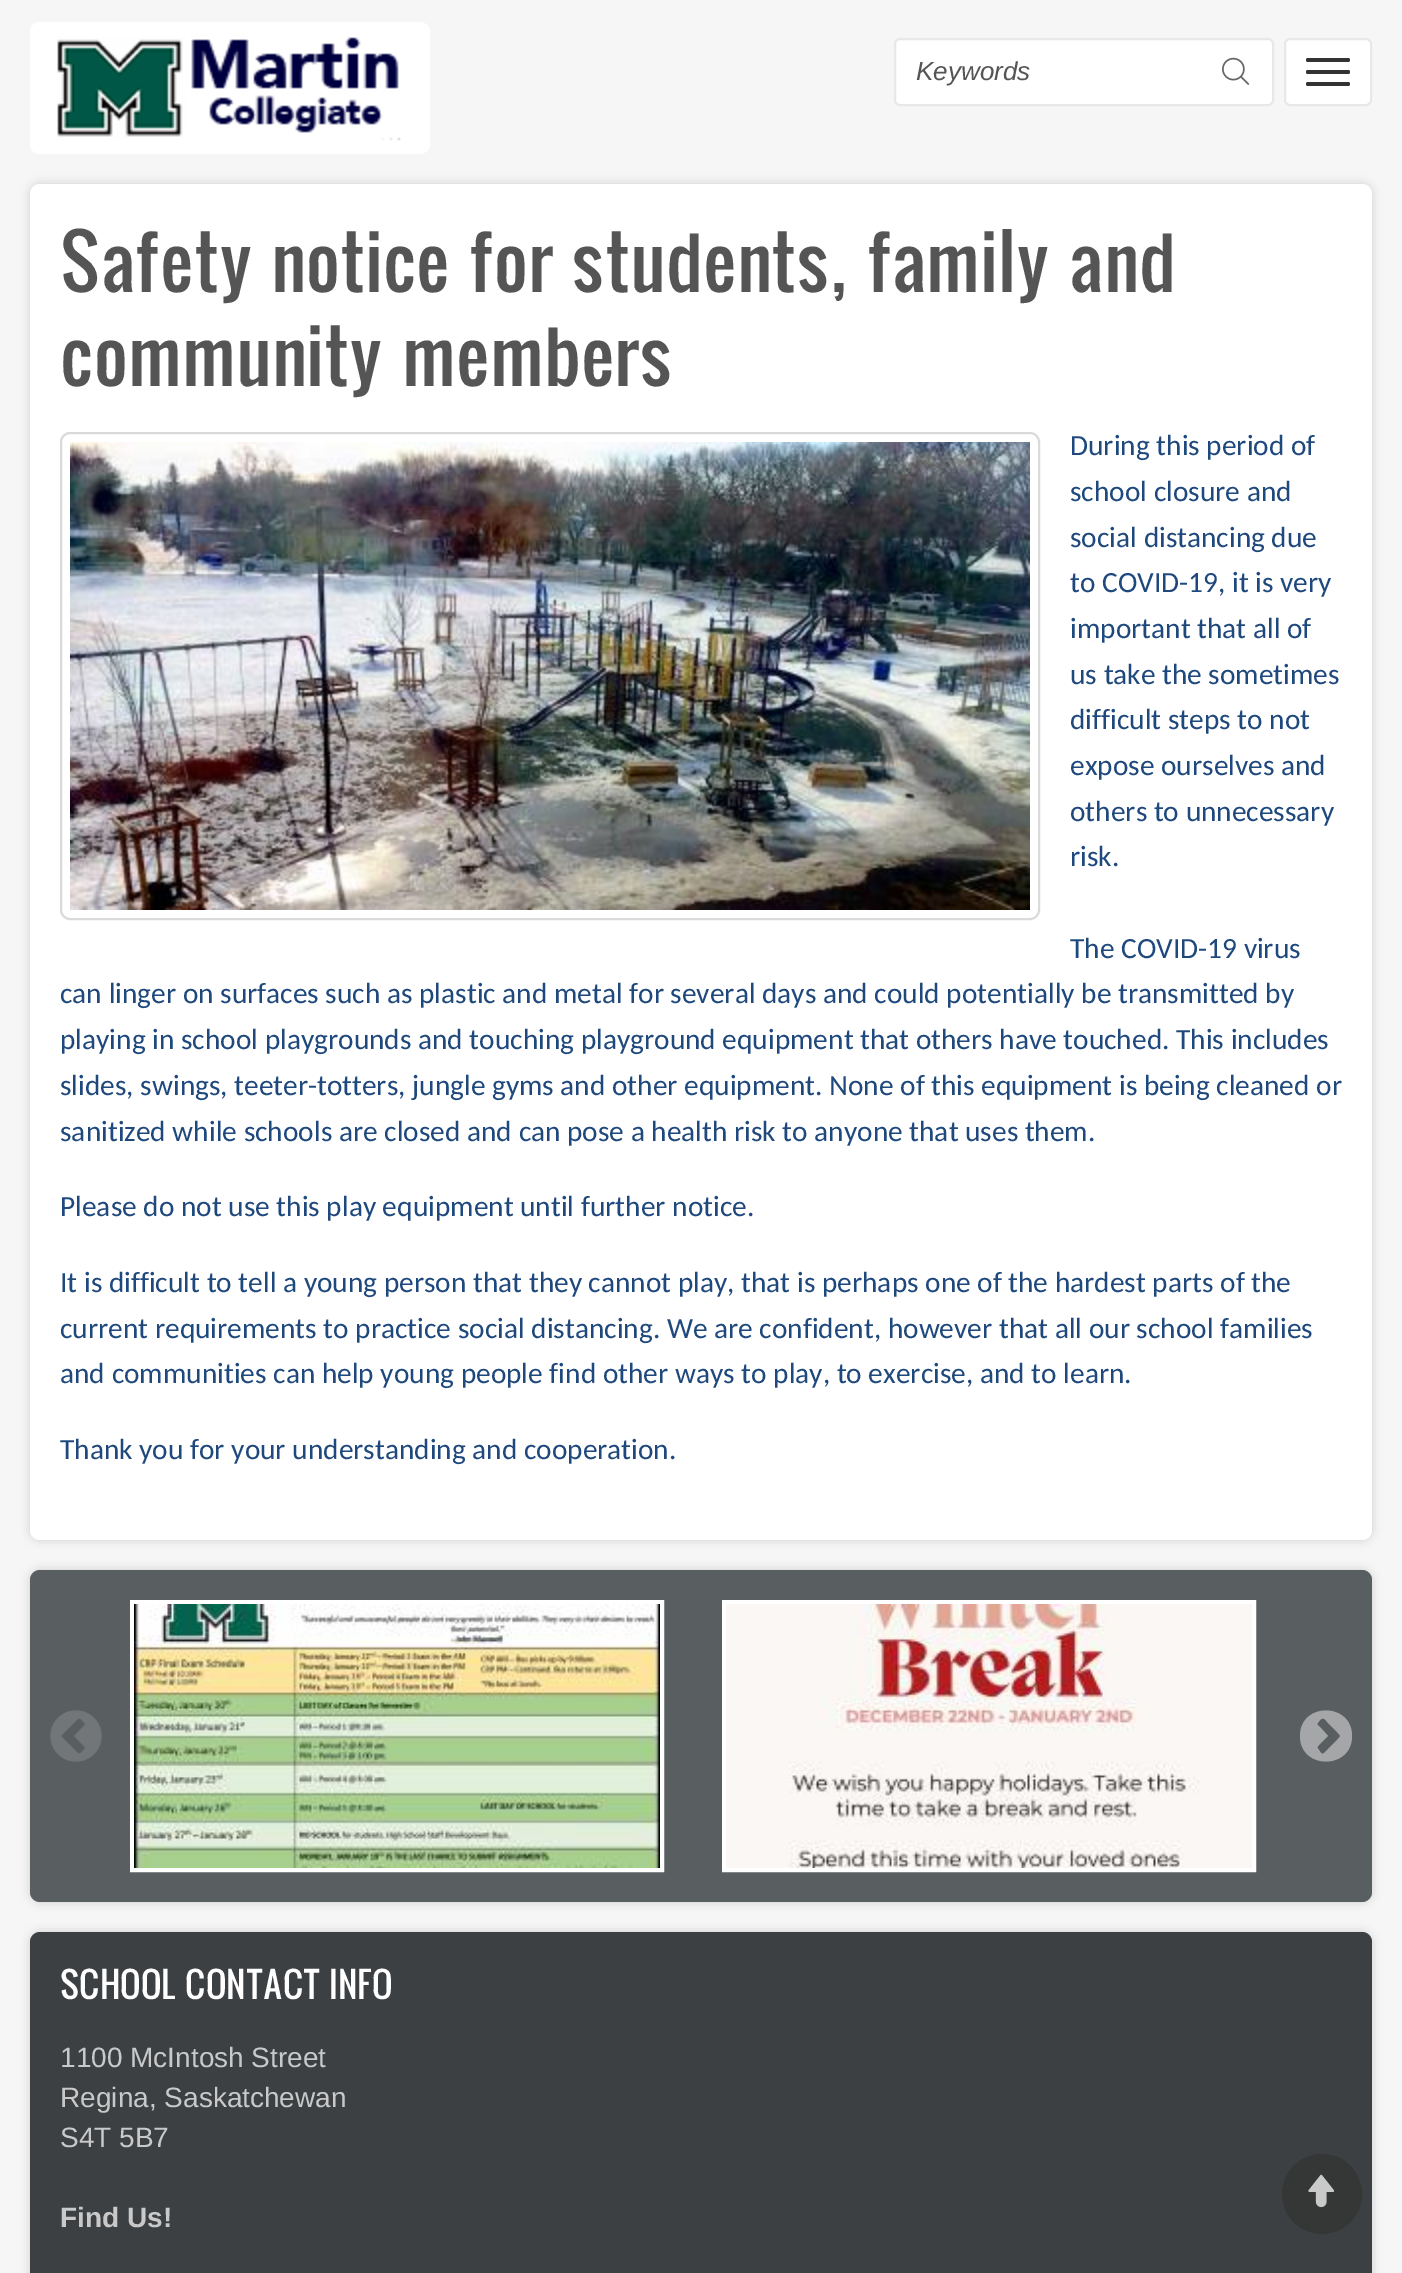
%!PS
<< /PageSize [1402 2273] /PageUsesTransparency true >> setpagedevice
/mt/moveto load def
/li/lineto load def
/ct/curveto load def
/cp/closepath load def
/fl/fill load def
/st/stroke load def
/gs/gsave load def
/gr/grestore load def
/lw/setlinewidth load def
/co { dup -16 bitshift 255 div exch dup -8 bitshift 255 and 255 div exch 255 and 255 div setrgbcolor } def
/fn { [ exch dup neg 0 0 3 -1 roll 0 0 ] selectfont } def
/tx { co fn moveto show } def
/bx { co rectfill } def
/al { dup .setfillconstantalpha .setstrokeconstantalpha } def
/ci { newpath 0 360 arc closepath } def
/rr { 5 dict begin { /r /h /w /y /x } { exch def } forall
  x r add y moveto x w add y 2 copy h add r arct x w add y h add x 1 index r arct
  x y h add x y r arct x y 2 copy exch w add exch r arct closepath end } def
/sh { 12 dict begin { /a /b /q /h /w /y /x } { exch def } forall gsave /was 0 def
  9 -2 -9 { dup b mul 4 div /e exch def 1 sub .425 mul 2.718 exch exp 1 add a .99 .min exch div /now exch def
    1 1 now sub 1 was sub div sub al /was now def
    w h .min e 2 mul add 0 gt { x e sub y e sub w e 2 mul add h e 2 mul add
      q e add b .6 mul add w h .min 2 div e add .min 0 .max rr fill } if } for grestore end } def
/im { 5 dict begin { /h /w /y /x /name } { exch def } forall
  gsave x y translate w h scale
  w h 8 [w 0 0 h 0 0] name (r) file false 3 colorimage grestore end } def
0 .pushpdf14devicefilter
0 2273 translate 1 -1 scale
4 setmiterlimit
0 0 1402 2273 16#F6F6F6 bx
16#FFFFFF co
30 22 400 132 10 rr fl
(media/1.raw) 57 37 344 104 im
895 39 378 66 5 rr gs fl gr
16#E7E8E9 co
2 lw
st
(media/2.raw) 1222 57 27 28 im
16#FFFFFF co
1285 39 86 66 5 rr gs fl gr
16#E7E8E9 co
st
16#333333 co
1306 58 44 4 2 rr fl
1306 70 44 4 2 rr fl
1306 82 44 4 2 rr fl
16#CCCCCC co
30 184 1342 1356 10 5 1 sh
16#FFFFFF co
30 184 1342 1356 10 rr fl
16#DADADA co
61 433 978 486 9 rr st
(media/3.raw) 70 442 960 468 im
16#CCCCCC co
30 1570 1342 332 10 5 1 sh
16#595E61 co
30 1570 1342 332 10 rr fl
(media/4.raw) 50 1710 52 52 im
16#FFFFFF co
4 lw
132 1602 530 268 rectstroke
(media/5.raw) 134 1604 526 264 im
724 1602 530 268 rectstroke
(media/6.raw) 726 1604 526 264 im
16#A4A6A8 co
1324 1753 mt 1322 1755 1320 1752 1319 1750 ct 1316 1747 1318 1746 1321 1743 ct 1328 1736 li 1320 1727 li 1316 1724 1317 1724 1320 1720 ct 1324 1716 1326 1721 1329 1724 ct 1337 1732 li 1341 1736 1341 1736 1337 1740 ct cp 1352 1736 mt 1352 1702 1300 1702 1300 1736 ct 1300 1770 1352 1770 1352 1736 ct cp fl
16#CCCCCC co
30 1932 1342 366 10 5 1 sh
16#3C4043 co
30 1932 1342 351 10 rr fl
16#353636 co
1322 2194 40 ci fl
(media/7.raw) 1308 2174 27 34 im
(Keywords) 916 80 /LiberationSans-Italic 26 16#555555 tx
(Safety notice for students, family and) 60 292 /Oswald-Regular 72 16#555555 tx
(community members) 60 386 /Oswald-Regular 72 16#555555 tx
(During this period of) 1070 455 /Carlito-Regular 29.35 16#1F497D tx
(school closure and) 1070 501 /Carlito-Regular 29.35 16#1F497D tx
(social distancing due) 1070 547 /Carlito-Regular 29.35 16#1F497D tx
(to COVID-19, it is very) 1070 592 /Carlito-Regular 29.35 16#1F497D tx
(important that all of) 1070 638 /Carlito-Regular 29.35 16#1F497D tx
(us take the sometimes) 1070 684 /Carlito-Regular 29.35 16#1F497D tx
(difficult steps to not) 1070 729 /Carlito-Regular 29.35 16#1F497D tx
(expose ourselves and) 1070 775 /Carlito-Regular 29.35 16#1F497D tx
(others to unnecessary) 1070 821 /Carlito-Regular 29.35 16#1F497D tx
(risk.) 1070 866 /Carlito-Regular 29.35 16#1F497D tx
(The COVID-19 virus) 1070 958 /Carlito-Regular 29.35 16#1F497D tx
(can linger on surfaces such as plastic and metal for several days and could potentially be transmitted by) 60 1003 /Carlito-Regular 29.35 16#1F497D tx
(playing in school playgrounds and touching playground equipment that others have touched. This includes) 60 1049 /Carlito-Regular 29.35 16#1F497D tx
(slides, swings, teeter-totters, jungle gyms and other equipment. None of this equipment is being cleaned or) 60 1095 /Carlito-Regular 29.35 16#1F497D tx
(sanitized while schools are closed and can pose a health risk to anyone that uses them.) 60 1141 /Carlito-Regular 29.35 16#1F497D tx
(Please do not use this play equipment until further notice.) 60 1216 /Carlito-Regular 29.35 16#1F497D tx
(It is difficult to tell a young person that they cannot play, that is perhaps one of the hardest parts of the) 60 1292 /Carlito-Regular 29.35 16#1F497D tx
(current requirements to practice social distancing. We are confident, however that all our school families) 60 1338 /Carlito-Regular 29.35 16#1F497D tx
(and communities can help young people find other ways to play, to exercise, and to learn.) 60 1383 /Carlito-Regular 29.35 16#1F497D tx
(Thank you for your understanding and cooperation.) 60 1459 /Carlito-Regular 29.35 16#1F497D tx
(SCHOOL CONTACT INFO) 60 1999 /Oswald-Regular 34.5 16#FFFFFF tx
(1100 McIntosh Street) 60 2067 /LiberationSans-Regular 28 16#C9C9C9 tx
(Regina, Saskatchewan) 60 2107 /LiberationSans-Regular 28 16#C9C9C9 tx
(S4T 5B7) 60 2147 /LiberationSans-Regular 28 16#C9C9C9 tx
(Find Us!) 60 2227 /LiberationSans-Bold 28 16#C9C9C9 tx
.poppdf14devicefilter showpage
